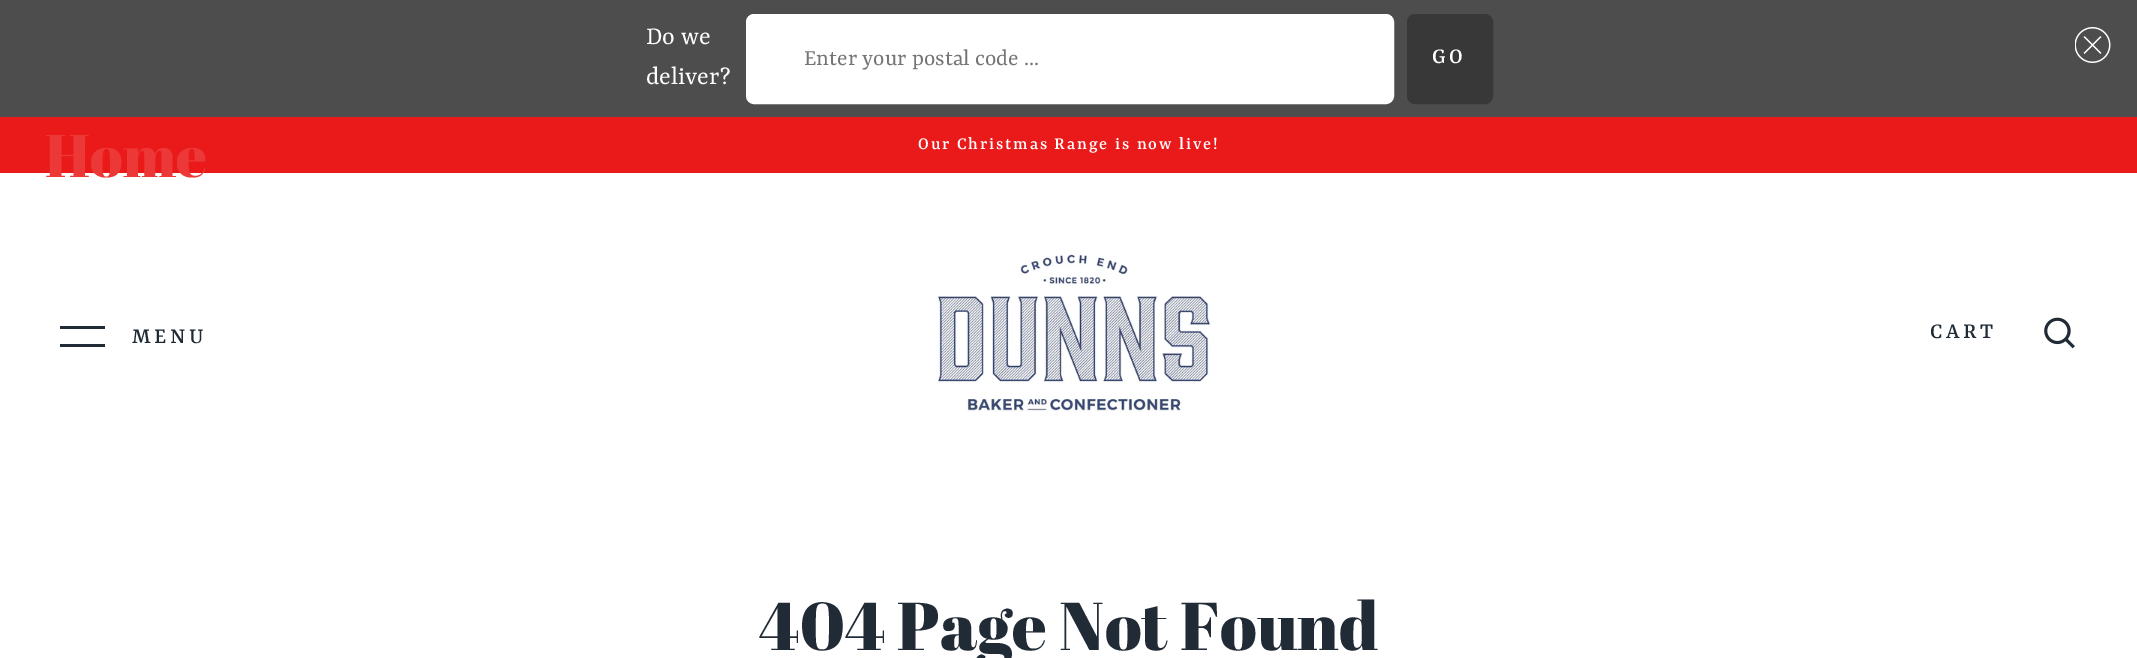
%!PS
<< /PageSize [2137 658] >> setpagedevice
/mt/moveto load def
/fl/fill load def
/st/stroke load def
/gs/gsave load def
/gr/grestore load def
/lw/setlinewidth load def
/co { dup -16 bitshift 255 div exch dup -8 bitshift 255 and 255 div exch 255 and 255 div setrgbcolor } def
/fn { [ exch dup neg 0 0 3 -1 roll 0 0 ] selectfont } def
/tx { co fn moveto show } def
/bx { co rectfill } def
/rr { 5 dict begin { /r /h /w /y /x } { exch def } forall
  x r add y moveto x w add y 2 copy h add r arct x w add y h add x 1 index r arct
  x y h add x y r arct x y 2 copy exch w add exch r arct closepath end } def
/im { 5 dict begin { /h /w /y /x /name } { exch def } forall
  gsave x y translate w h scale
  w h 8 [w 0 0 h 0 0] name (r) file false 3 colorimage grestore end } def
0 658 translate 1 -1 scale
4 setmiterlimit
0 0 2137 658 16#FFFFFF bx
0 0 2137 117 16#4D4D4D bx
16#FFFFFF co
747 15 646 88 7 rr gs fl gr
2 lw
st
16#383838 co
1408 15 84 88 7 rr gs fl gr
st
(media/1.raw) 2075 27 36 36 im
60 326 45 3 16#212B36 bx
60 344 45 3 16#212B36 bx
(media/2.raw) 936 254 276 158 im
(media/3.raw) 2044 317 31 32 im
0 117 2137 56 16#EA1A1A bx
(Do we) 646 44 /Yrsa-Regular 27 16#FFFFFF tx
(deliver?) 646 84 /Yrsa-Regular 27 16#FFFFFF tx
(Enter your postal code ...) 804 65 /Yrsa-Regular 24.25 16#757575 tx
/Yrsa-Medium 23.5 fn
16#FFFFFF co
1432 63 mt 3.5 0 (GO) ashow
(Home) 45 177 /AbrilFatface-Regular 60 16#ED3838 tx
/Yrsa-Medium 23.5 fn
16#212B36 co
132 343 mt 3.5 0 (MENU) ashow
1930 338 mt 3.5 0 (CART) ashow
/Yrsa-Medium 18.5 fn
16#FFFFFF co
918 149 mt 1.85 0 (Our Christmas Range is now live!) ashow
(404 Page Not Found) 759 650 /AbrilFatface-Regular 67.5 16#212B36 tx
showpage
